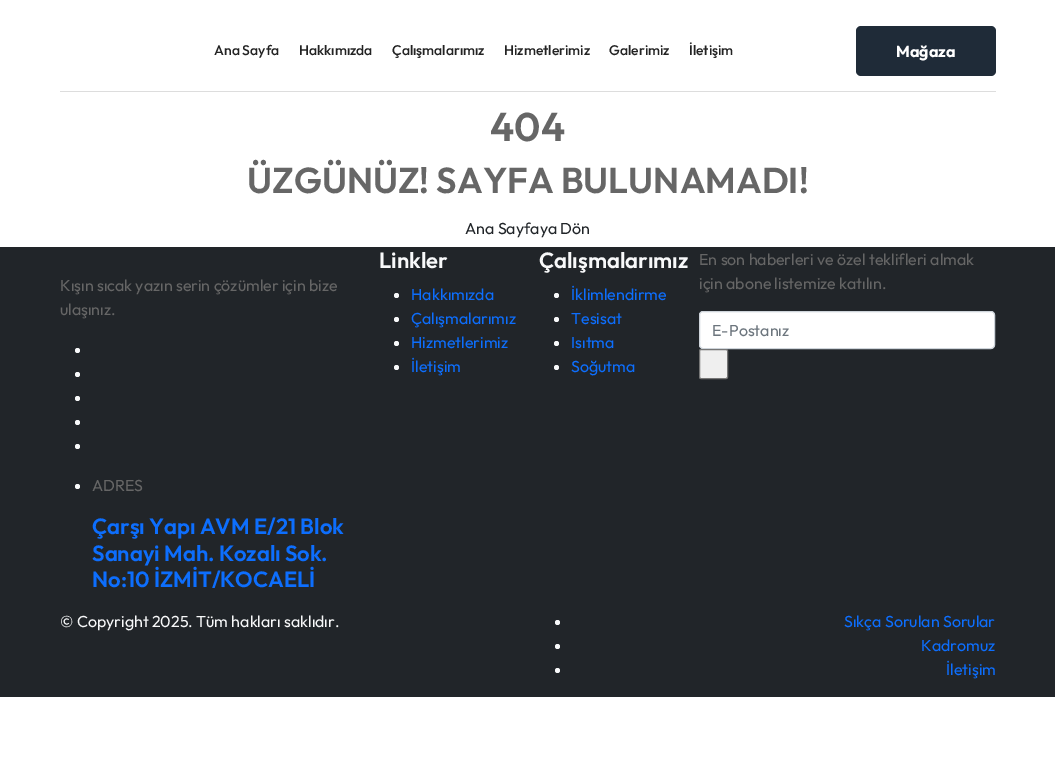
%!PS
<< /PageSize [1055 760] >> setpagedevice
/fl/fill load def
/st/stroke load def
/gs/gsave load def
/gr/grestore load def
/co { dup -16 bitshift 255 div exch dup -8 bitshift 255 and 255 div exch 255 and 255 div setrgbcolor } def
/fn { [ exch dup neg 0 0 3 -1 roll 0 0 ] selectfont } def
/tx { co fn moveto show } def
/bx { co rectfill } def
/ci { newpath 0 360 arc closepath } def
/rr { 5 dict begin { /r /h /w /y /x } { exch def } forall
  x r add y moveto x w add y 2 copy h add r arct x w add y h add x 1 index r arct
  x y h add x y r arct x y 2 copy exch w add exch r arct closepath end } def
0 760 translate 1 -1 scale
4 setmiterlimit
0 0 1055 760 16#FFFFFF bx
60 91 936 1 16#DDDDDD bx
16#1F2B38 co
856 26 140 50 5 rr fl
0 247 1055 450 16#212529 bx
16#F8F9FA co
77.5 350.5 2.5 ci fl
77.5 374.5 2.5 ci fl
77.5 398.5 2.5 ci fl
77.5 422.5 2.5 ci fl
77.5 446.5 2.5 ci fl
77.5 486.5 2.5 ci fl
396.5 295.5 2.5 ci fl
396.5 319.5 2.5 ci fl
396.5 343.5 2.5 ci fl
396.5 367.5 2.5 ci fl
556.5 295.5 2.5 ci fl
556.5 319.5 2.5 ci fl
556.5 343.5 2.5 ci fl
556.5 367.5 2.5 ci fl
16#FFFFFF co
699.5 311.5 295 37 3.5 rr gs fl gr
16#CED4DA co
st
16#EFEFEF co
699.5 349.5 28 29 1.5 rr gs fl gr
16#767676 co
st
16#F8F9FA co
557.5 622.5 2.5 ci fl
557.5 646.5 2.5 ci fl
557.5 670.5 2.5 ci fl
(Ana Sayfa) 214 55 /Outfit-Medium 14 16#232323 tx
(Hakkımızda) 299 55 /Outfit-Medium 14 16#232323 tx
(Çalışmalarımız) 392 55 /Outfit-Medium 14 16#232323 tx
(Hizmetlerimiz) 504 55 /Outfit-Medium 14 16#232323 tx
(Galerimiz) 609 55 /Outfit-Medium 14 16#232323 tx
(İletişim) 689 55 /Outfit-Medium 14 16#232323 tx
(Mağaza) 896 57 /Outfit-Bold 16 16#FFFFFF tx
(404) 490 141 /Outfit-SemiBold 40 16#666666 tx
(ÜZGÜNÜZ! SAYFA BULUNAMADI!) 247 193 /Outfit-SemiBold 36 16#666666 tx
(Ana Sayfaya Dön) 465 234 /Outfit-Regular 16 16#212529 tx
(Kışın sıcak yazın serin çözümler için bize) 60 291 /Outfit-Regular 16 16#666666 tx
(ulaşınız.) 60 315 /Outfit-Regular 16 16#666666 tx
(ADRES) 92 491 /Outfit-Regular 16 16#666666 tx
(Çarşı Yapı AVM E/21 Blok) 92 534 /Outfit-SemiBold 22 16#0D6EFD tx
(Sanayi Mah. Kozalı Sok.) 92 561 /Outfit-SemiBold 22 16#0D6EFD tx
(No:10 İZMİT/KOCAELİ) 92 587 /Outfit-SemiBold 22 16#0D6EFD tx
(Linkler) 379 268 /Outfit-SemiBold 22 16#F8F9FA tx
(Hakkımızda) 411 300 /Outfit-Regular 16 16#0D6EFD tx
(Çalışmalarımız) 411 324 /Outfit-Regular 16 16#0D6EFD tx
(Hizmetlerimiz) 411 348 /Outfit-Regular 16 16#0D6EFD tx
(İletişim) 411 372 /Outfit-Regular 16 16#0D6EFD tx
(Çalışmalarımız) 539 268 /Outfit-SemiBold 22 16#F8F9FA tx
(İklimlendirme) 571 300 /Outfit-Regular 16 16#0D6EFD tx
(Tesisat) 571 324 /Outfit-Regular 16 16#0D6EFD tx
(Isıtma) 571 348 /Outfit-Regular 16 16#0D6EFD tx
(Soğutma) 571 372 /Outfit-Regular 16 16#0D6EFD tx
(En son haberleri ve özel teklifleri almak) 699 265 /Outfit-Regular 16 16#666666 tx
(için abone listemize katılın.) 699 289 /Outfit-Regular 16 16#666666 tx
(E-Postanız) 712 336 /Outfit-Regular 16 16#6C757D tx
(© Copyright 2025. Tüm hakları saklıdır.) 60 627 /Outfit-Regular 16 16#F8F9FA tx
(Sıkça Sorulan Sorular) 844 627 /Outfit-Regular 16 16#0D6EFD tx
(Kadromuz) 921 651 /Outfit-Regular 16 16#0D6EFD tx
(İletişim) 946 675 /Outfit-Regular 16 16#0D6EFD tx
showpage
